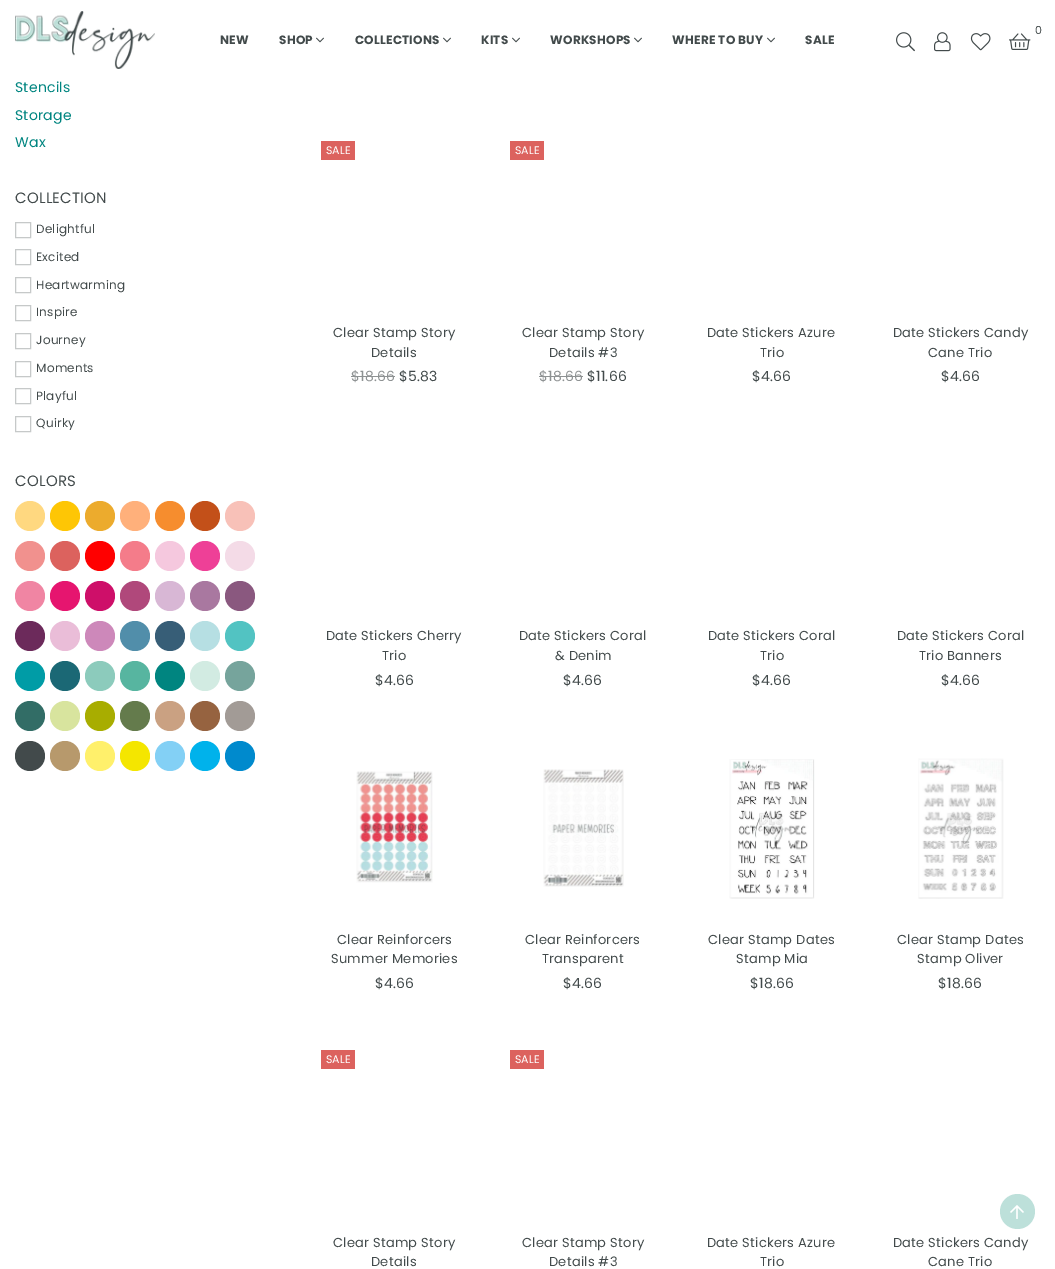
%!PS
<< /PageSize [1055 1269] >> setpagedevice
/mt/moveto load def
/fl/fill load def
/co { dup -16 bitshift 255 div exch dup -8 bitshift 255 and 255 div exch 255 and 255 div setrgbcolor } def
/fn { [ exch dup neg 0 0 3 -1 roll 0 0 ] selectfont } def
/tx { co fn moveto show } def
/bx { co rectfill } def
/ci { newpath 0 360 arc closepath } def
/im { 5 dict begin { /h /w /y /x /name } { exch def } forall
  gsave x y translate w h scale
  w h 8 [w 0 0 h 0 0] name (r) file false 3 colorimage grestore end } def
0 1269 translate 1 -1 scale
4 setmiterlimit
0 0 1055 1269 16#FFFFFF bx
(media/1.raw) 15 11 140 58 im
(media/2.raw) 1009 33 22 17 im
(media/3.raw) 896 32 19 20 im
(media/4.raw) 934 32 17 20 im
(media/5.raw) 970 33 21 18 im
(media/6.raw) 316 37 8 6 im
(media/6.raw) 443 37 8 6 im
(media/6.raw) 512 37 8 6 im
(media/6.raw) 634 37 8 6 im
(media/6.raw) 767 37 8 6 im
16#C6C9C9 co
15.5 222.5 15 15 rectstroke
15.5 249.5 15 15 rectstroke
15.5 277.5 15 15 rectstroke
15.5 305.5 15 15 rectstroke
15.5 333.5 15 15 rectstroke
15.5 361.5 15 15 rectstroke
15.5 388.5 15 15 rectstroke
15.5 416.5 15 15 rectstroke
16#FFD880 co
30 516 15 ci fl
16#FEC605 co
65 516 15 ci fl
16#ECAB2D co
100 516 15 ci fl
16#FFB07B co
135 516 15 ci fl
16#F68D2E co
170 516 15 ci fl
16#C35019 co
205 516 15 ci fl
16#F8C1B8 co
240 516 15 ci fl
16#F1918E co
30 556 15 ci fl
16#DC625E co
65 556 15 ci fl
16#FF0000 co
100 556 15 ci fl
16#F47C8A co
135 556 15 ci fl
16#F5C8DE co
170 556 15 ci fl
16#EE4097 co
205 556 15 ci fl
16#F4DBE7 co
240 556 15 ci fl
16#F085A3 co
30 596 15 ci fl
16#E6156F co
65 596 15 ci fl
16#CE0F69 co
100 596 15 ci fl
16#B0487B co
135 596 15 ci fl
16#D8B7D5 co
170 596 15 ci fl
16#A978A0 co
205 596 15 ci fl
16#8A587F co
240 596 15 ci fl
16#6C2A5B co
30 636 15 ci fl
16#EABDD8 co
65 636 15 ci fl
16#CD88BA co
100 636 15 ci fl
16#518EAA co
135 636 15 ci fl
16#375E77 co
170 636 15 ci fl
16#B6DFE3 co
205 636 15 ci fl
16#52C3C2 co
240 636 15 ci fl
16#009CA6 co
30 676 15 ci fl
16#1B6875 co
65 676 15 ci fl
16#8CCBBC co
100 676 15 ci fl
16#57B5A0 co
135 676 15 ci fl
16#008580 co
170 676 15 ci fl
16#D2EBE2 co
205 676 15 ci fl
16#76A49C co
240 676 15 ci fl
16#326D66 co
30 716 15 ci fl
16#D8E49E co
65 716 15 ci fl
16#A8AD00 co
100 716 15 ci fl
16#647B4C co
135 716 15 ci fl
16#CAA182 co
170 716 15 ci fl
16#966340 co
205 716 15 ci fl
16#A29B96 co
240 716 15 ci fl
16#424A4B co
30 756 15 ci fl
16#B7996C co
65 756 15 ci fl
16#FFF06B co
100 756 15 ci fl
16#F4E600 co
135 756 15 ci fl
16#83D0F5 co
170 756 15 ci fl
16#00B2EB co
205 756 15 ci fl
16#008ACD co
240 756 15 ci fl
321 141 34 19 16#DC625E bx
351 376 44 1 16#8E9293 bx
510 141 34 19 16#DC625E bx
539 376 44 1 16#8E9293 bx
(media/7.raw) 356 771 77 112 im
(media/8.raw) 543 769 81 118 im
(media/9.raw) 729 759 86 140 im
(media/10.raw) 918 758 86 141 im
321 1050 34 19 16#DC625E bx
510 1050 34 19 16#DC625E bx
16#BDE0DA co
1017.5 1211.5 17.5 ci fl
(media/11.raw) 1010 1205 14 14 im
/Poppins-Regular 11 fn
16#424A4B co
1035 34 mt .25 0 (0) ashow
/Poppins-Bold 12 fn
220 44 mt .25 0 (NEW) ashow
279 44 mt .25 0 (SHOP) ashow
355 44 mt .25 0 (COLLECTIONS) ashow
481 44 mt .25 0 (KITS) ashow
550 44 mt .25 0 (WORKSHOPS) ashow
672 44 mt .25 0 (WHERE TO BUY) ashow
805 44 mt .25 0 (SALE) ashow
/Poppins-Regular 14 fn
16#008580 co
15 92 mt .25 0 (Stencils) ashow
15 120 mt .25 0 (Storage) ashow
15 147 mt .25 0 (Wax) ashow
/Poppins-Regular 15 fn
16#424A4B co
15 203 mt .25 0 (COLLECTION) ashow
/Poppins-Regular 12 fn
36 233 mt .25 0 (Delightful) ashow
36 261 mt .25 0 (Excited) ashow
36 289 mt .25 0 (Heartwarming) ashow
36 316 mt .25 0 (Inspire) ashow
36 344 mt .25 0 (Journey) ashow
36 372 mt .25 0 (Moments) ashow
36 400 mt .25 0 (Playful) ashow
36 427 mt .25 0 (Quirky) ashow
/Poppins-Regular 15 fn
15 486 mt .25 0 (COLORS) ashow
(SALE) 326 154 /Poppins-Regular 11 16#FFFFFF tx
/Poppins-Regular 13 fn
16#424A4B co
333 337 mt .25 0 (Clear Stamp Story) ashow
371 357 mt .25 0 (Details) ashow
/Poppins-Regular 14 fn
16#8E9293 co
351 381 mt .25 0 ($18.66) ashow
16#424A4B co
399 381 mt .25 0 ($5.83) ashow
(SALE) 515 154 /Poppins-Regular 11 16#FFFFFF tx
/Poppins-Regular 13 fn
16#424A4B co
522 337 mt .25 0 (Clear Stamp Story) ashow
549 357 mt .25 0 (Details #3) ashow
/Poppins-Regular 14 fn
16#8E9293 co
539 381 mt .25 0 ($18.66) ashow
16#424A4B co
587 381 mt .25 0 ($11.66) ashow
/Poppins-Regular 13 fn
707 337 mt .25 0 (Date Stickers Azure) ashow
760 357 mt .25 0 (Trio) ashow
/Poppins-Regular 14 fn
752 381 mt .25 0 ($4.66) ashow
/Poppins-Regular 13 fn
893 337 mt .25 0 (Date Stickers Candy) ashow
928 357 mt .25 0 (Cane Trio) ashow
/Poppins-Regular 14 fn
941 381 mt .25 0 ($4.66) ashow
/Poppins-Regular 13 fn
326 640 mt .25 0 (Date Stickers Cherry) ashow
382 660 mt .25 0 (Trio) ashow
/Poppins-Regular 14 fn
375 685 mt .25 0 ($4.66) ashow
/Poppins-Regular 13 fn
519 640 mt .25 0 (Date Stickers Coral) ashow
555 660 mt .25 0 (& Denim) ashow
/Poppins-Regular 14 fn
563 685 mt .25 0 ($4.66) ashow
/Poppins-Regular 13 fn
708 640 mt .25 0 (Date Stickers Coral) ashow
760 660 mt .25 0 (Trio) ashow
/Poppins-Regular 14 fn
752 685 mt .25 0 ($4.66) ashow
/Poppins-Regular 13 fn
897 640 mt .25 0 (Date Stickers Coral) ashow
919 660 mt .25 0 (Trio Banners) ashow
/Poppins-Regular 14 fn
941 685 mt .25 0 ($4.66) ashow
/Poppins-Regular 13 fn
337 944 mt .25 0 (Clear Reinforcers) ashow
331 963 mt .25 0 (Summer Memories) ashow
/Poppins-Regular 14 fn
375 988 mt .25 0 ($4.66) ashow
/Poppins-Regular 13 fn
525 944 mt .25 0 (Clear Reinforcers) ashow
542 963 mt .25 0 (Transparent) ashow
/Poppins-Regular 14 fn
563 988 mt .25 0 ($4.66) ashow
/Poppins-Regular 13 fn
708 944 mt .25 0 (Clear Stamp Dates) ashow
736 963 mt .25 0 (Stamp Mia) ashow
/Poppins-Regular 14 fn
750 988 mt .25 0 ($18.66) ashow
/Poppins-Regular 13 fn
897 944 mt .25 0 (Clear Stamp Dates) ashow
917 963 mt .25 0 (Stamp Oliver) ashow
/Poppins-Regular 14 fn
938 988 mt .25 0 ($18.66) ashow
(SALE) 326 1063 /Poppins-Regular 11 16#FFFFFF tx
/Poppins-Regular 13 fn
16#424A4B co
333 1247 mt .25 0 (Clear Stamp Story) ashow
371 1266 mt .25 0 (Details) ashow
(SALE) 515 1063 /Poppins-Regular 11 16#FFFFFF tx
/Poppins-Regular 13 fn
16#424A4B co
522 1247 mt .25 0 (Clear Stamp Story) ashow
549 1266 mt .25 0 (Details #3) ashow
707 1247 mt .25 0 (Date Stickers Azure) ashow
760 1266 mt .25 0 (Trio) ashow
893 1247 mt .25 0 (Date Stickers Candy) ashow
928 1266 mt .25 0 (Cane Trio) ashow
showpage
